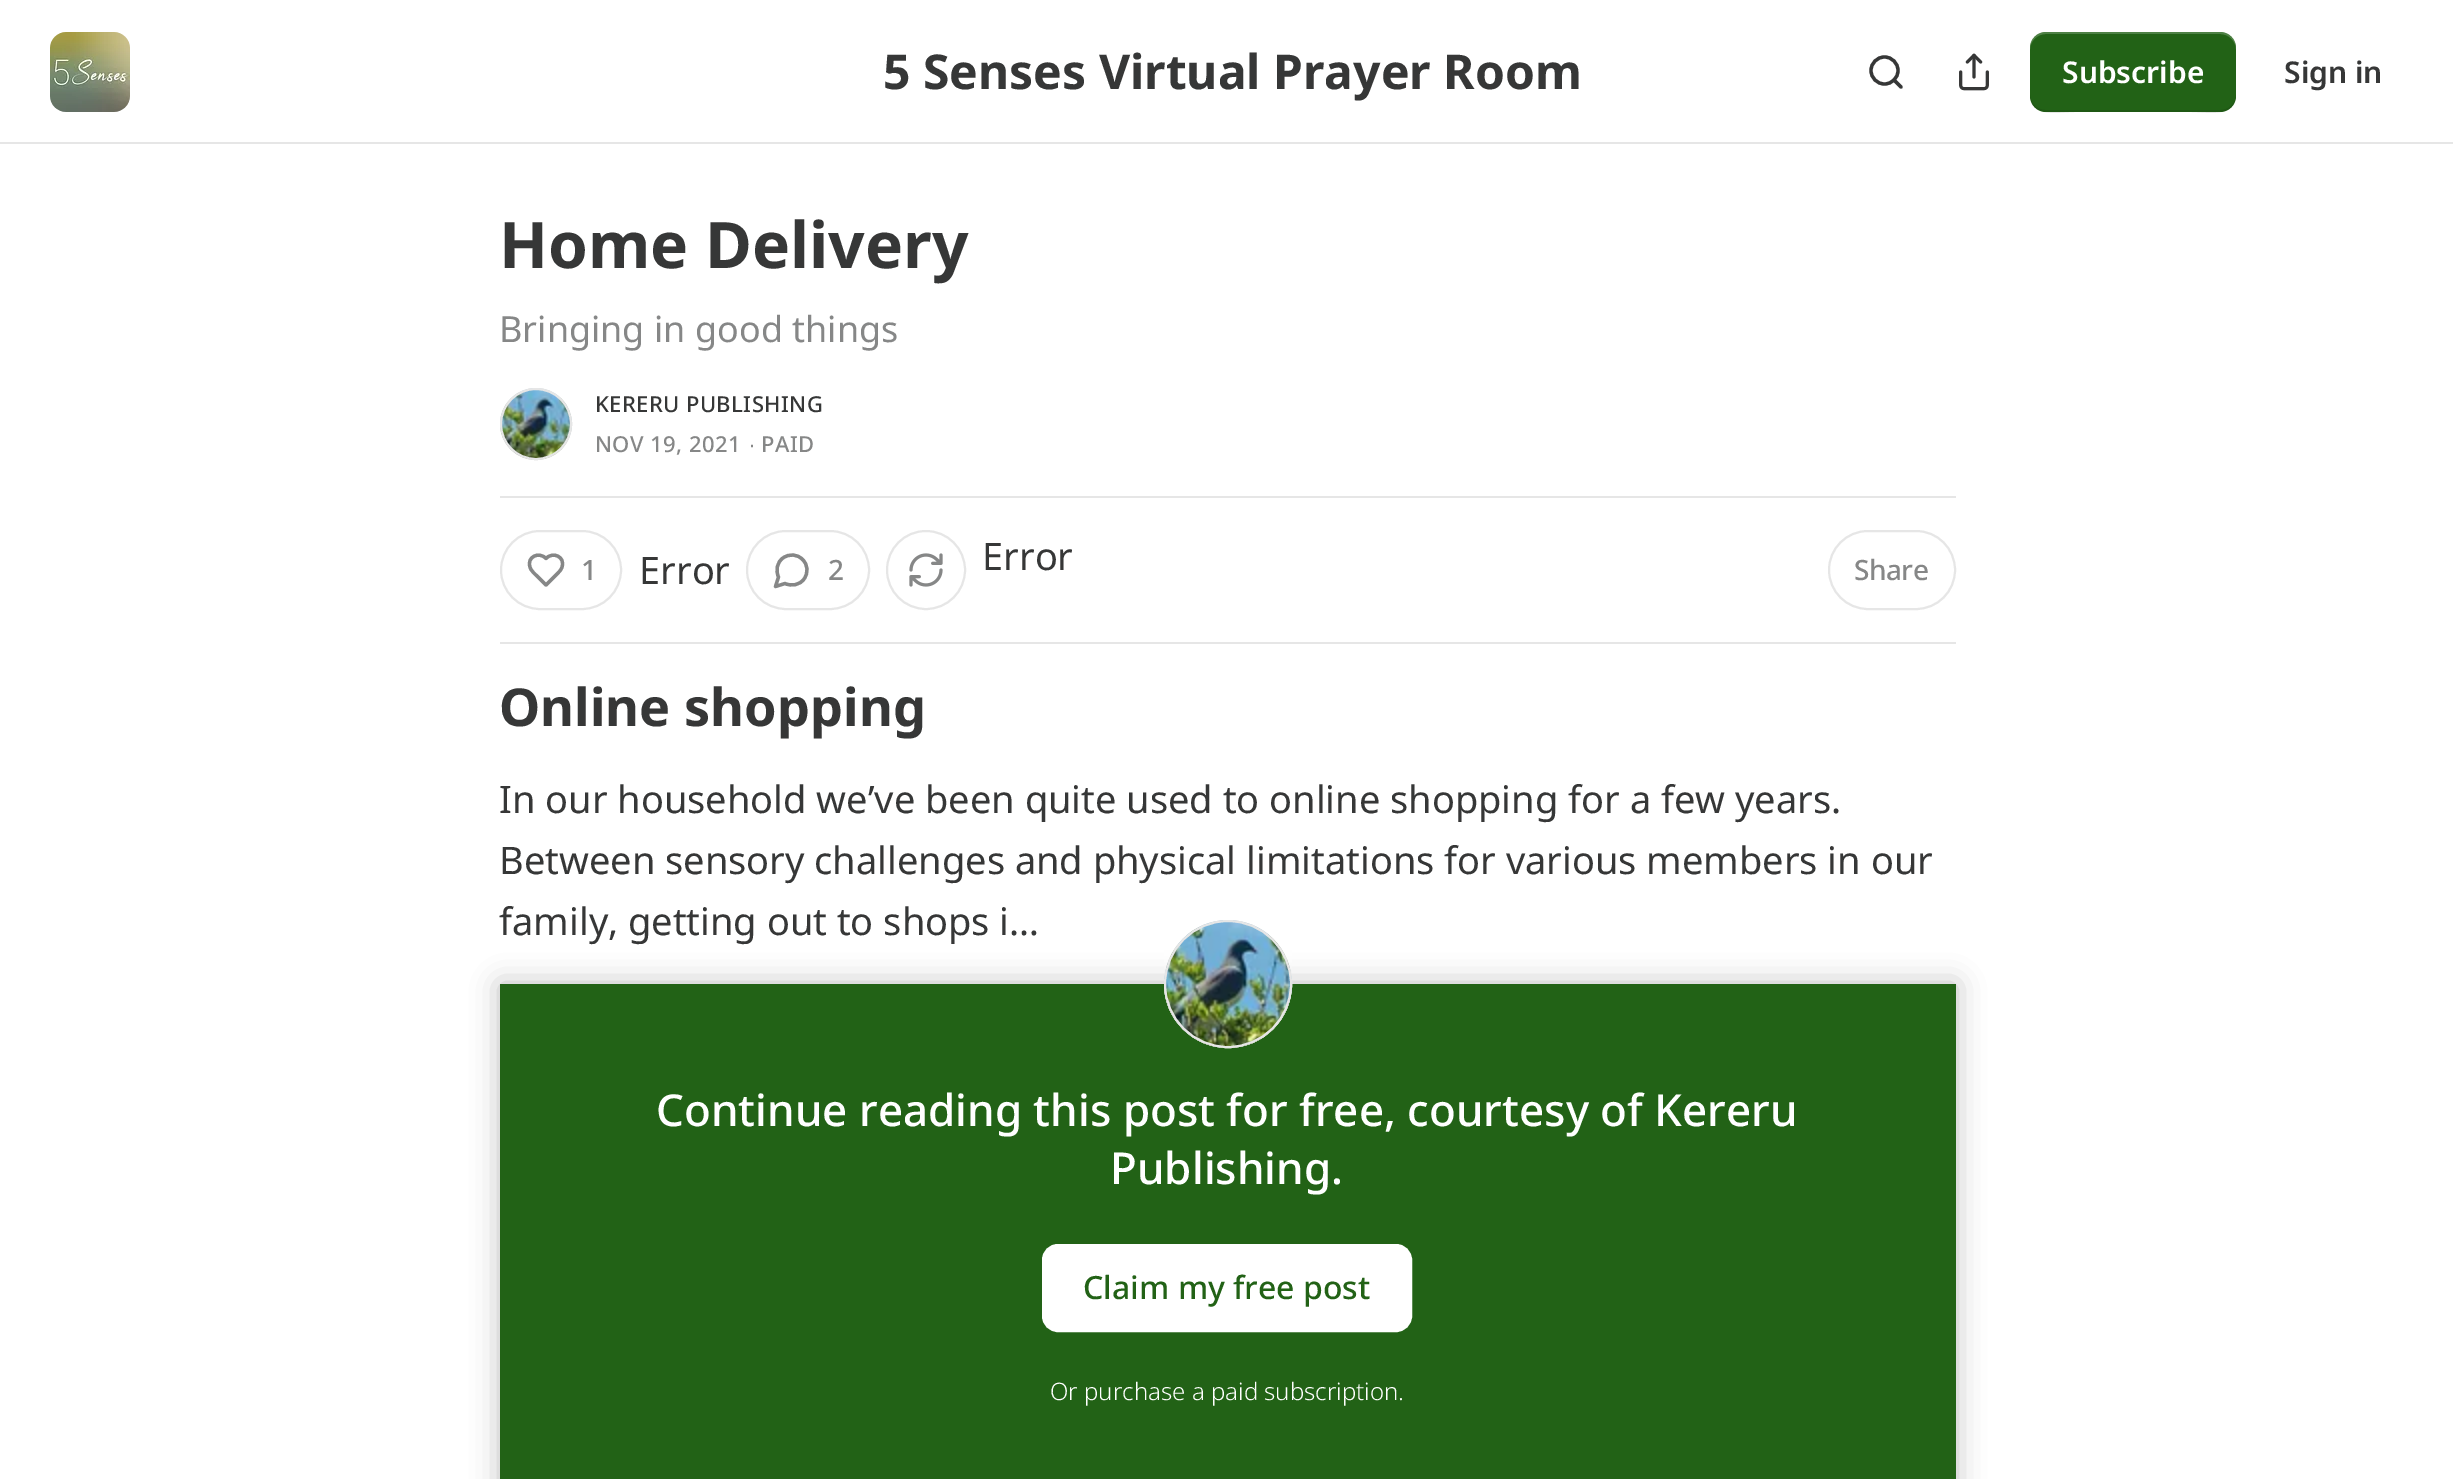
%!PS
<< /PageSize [2453 1479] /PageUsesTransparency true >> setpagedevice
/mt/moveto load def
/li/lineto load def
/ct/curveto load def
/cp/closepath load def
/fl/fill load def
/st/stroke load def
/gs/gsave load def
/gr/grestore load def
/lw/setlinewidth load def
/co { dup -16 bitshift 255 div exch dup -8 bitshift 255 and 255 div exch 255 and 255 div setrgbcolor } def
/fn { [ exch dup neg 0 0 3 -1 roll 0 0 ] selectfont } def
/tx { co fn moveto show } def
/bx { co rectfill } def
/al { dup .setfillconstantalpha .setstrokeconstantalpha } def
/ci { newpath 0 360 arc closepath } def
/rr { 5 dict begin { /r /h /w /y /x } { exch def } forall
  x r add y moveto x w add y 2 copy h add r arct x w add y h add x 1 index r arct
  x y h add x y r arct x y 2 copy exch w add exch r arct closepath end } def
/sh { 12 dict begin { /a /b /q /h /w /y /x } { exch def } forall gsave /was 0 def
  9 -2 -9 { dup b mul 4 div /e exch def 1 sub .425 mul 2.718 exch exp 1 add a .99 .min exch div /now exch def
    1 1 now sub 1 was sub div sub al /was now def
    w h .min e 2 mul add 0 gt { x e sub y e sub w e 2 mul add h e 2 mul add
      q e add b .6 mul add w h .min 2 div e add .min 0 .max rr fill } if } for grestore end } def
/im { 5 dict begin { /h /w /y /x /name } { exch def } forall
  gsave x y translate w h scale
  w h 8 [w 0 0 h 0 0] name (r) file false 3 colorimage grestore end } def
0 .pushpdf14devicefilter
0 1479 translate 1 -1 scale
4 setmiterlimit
0 0 2453 1479 16#FFFFFF bx
0 142 2453 2 16#E6E6E6 bx
(media/1.raw) 50 32 80 80 im
16#363737 co
3.3 lw
1884.5 70.5 13.5 ci st
1 setlinecap
1 setlinejoin
1901 87 mt 1894 80 li st
(media/2.raw) 1959 53 30 38 im
16#226216 co
2030 32 206 80 16 rr fl
0.1 al
16#000000 co
2030 94 mt 2030 119 2059 112 2075 112 ct 2191 112 li 2207 112 2236 119 2236 94 ct 2236 103 2229 110 2220 110 ct 2046 110 li 2037 110 2030 103 2030 94 ct cp fl
0.2 al
16#FFFFFF co
2046 34 mt 2220 34 li 2229 34 2236 41 2236 50 ct 2236 25 2207 32 2191 32 ct 2075 32 li 2059 32 2030 25 2030 50 ct 2030 41 2037 34 2046 34 ct cp fl
1 al
16#E6E6E6 co
2 lw
0 setlinecap
0 setlinejoin
536 424 35 ci st
(media/3.raw) 500 388 72 72 im
536 424 35 ci st
500 496 1456 2 16#E6E6E6 bx
500 642 1456 2 16#E6E6E6 bx
501 531 120 78 39 rr st
16#868787 co
3.3 lw
1 setlinecap
1 setlinejoin
557.5 573.5 mt 559.5 571.5 561.5 569.5 562 567 ct 565.5 557 553 551 546 558.5 ct 539 551 526.5 557 530 567 ct 531 571 535 574 538 577 ct 546 585 li cp st
16#E6E6E6 co
2 lw
0 setlinecap
0 setlinejoin
747 531 122 78 39 rr st
16#868787 co
3.3 lw
1 setlinecap
1 setlinejoin
785 583.5 mt 791.5 586.5 800 585 804 579 ct 808.5 573 808 564.5 802.5 559.5 ct 797.5 554 789 553.5 783 558 ct 777 562 775.5 570.5 778.5 577 ct 775.5 586.5 li cp st
16#E6E6E6 co
2 lw
0 setlinecap
0 setlinejoin
926 570 39 ci st
(media/4.raw) 909 553 34 34 im
1829 531 126 78 39 rr st
500 984 1456 495 16#226216 bx
16#FFFFFF co
1043 1245 368 86 15 rr gs fl gr
st
gs
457 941 mt 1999 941 li 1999 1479 li 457 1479 li cp 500 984 mt 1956 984 li 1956 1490 li 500 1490 li cp eoclip newpath
16#000000 co
500 984 1456 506 0 14 .25 sh
gr
16#E6E6E6 co
1228 984 63 ci st
(media/5.raw) 1164 920 128 128 im
1228 984 63 ci st
(5 Senses Virtual Prayer Room) 883 89 /NotoSans-Bold 48 16#363737 tx
(Subscribe) 2062 83 /NotoSans-SemiBold 30 16#FFFFFF tx
(Sign in) 2284 83 /NotoSans-SemiBold 30 16#363737 tx
(Home Delivery) 499 268 /NotoSans-Bold 64 16#363737 tx
(Bringing in good things) 499 342 /NotoSans-Regular 36 16#868787 tx
/NotoSans-Medium 22 fn
16#363737 co
595 412 mt .4 0 (KERERU PUBLISHING) ashow
16#868787 co
595 452 mt .4 0 (NOV 19, 2021) ashow
/LiberationSans-Regular 22 fn
749 452 mt .4 0 (∙) ashow
/NotoSans-Medium 22 fn
761 452 mt .4 0 (PAID) ashow
/NotoSans-Medium 28 fn
581 580 mt -.5 0 (1) ashow
(Error) 639 584 /NotoSans-Regular 38 16#363737 tx
/NotoSans-Medium 28 fn
16#868787 co
828 580 mt -.5 0 (2) ashow
(Error) 982 570 /NotoSans-Regular 38 16#363737 tx
/NotoSans-Medium 28 fn
16#868787 co
1854 580 mt -.5 0 (Share) ashow
(Online shopping) 499 726 /NotoSans-Bold 52.25 16#363737 tx
(In our household we’ve been quite used to online shopping for a few years.) 499 813 /NotoSans-Regular 38 16#363737 tx
(Between sensory challenges and physical limitations for various members in our) 499 874 /NotoSans-Regular 38 16#363737 tx
(family, getting out to shops i…) 499 935 /NotoSans-Regular 38 16#363737 tx
(Continue reading this post for free, courtesy of Kereru) 656 1126 /NotoSans-Medium 44 16#FFFFFF tx
(Publishing.) 1110 1184 /NotoSans-Medium 44 16#FFFFFF tx
(Claim my free post) 1083 1299 /NotoSans-Medium 32 16#226216 tx
(Or purchase a paid subscription.) 1050 1400 /NotoSans-Light 24 16#FFFFFF tx
.poppdf14devicefilter showpage
